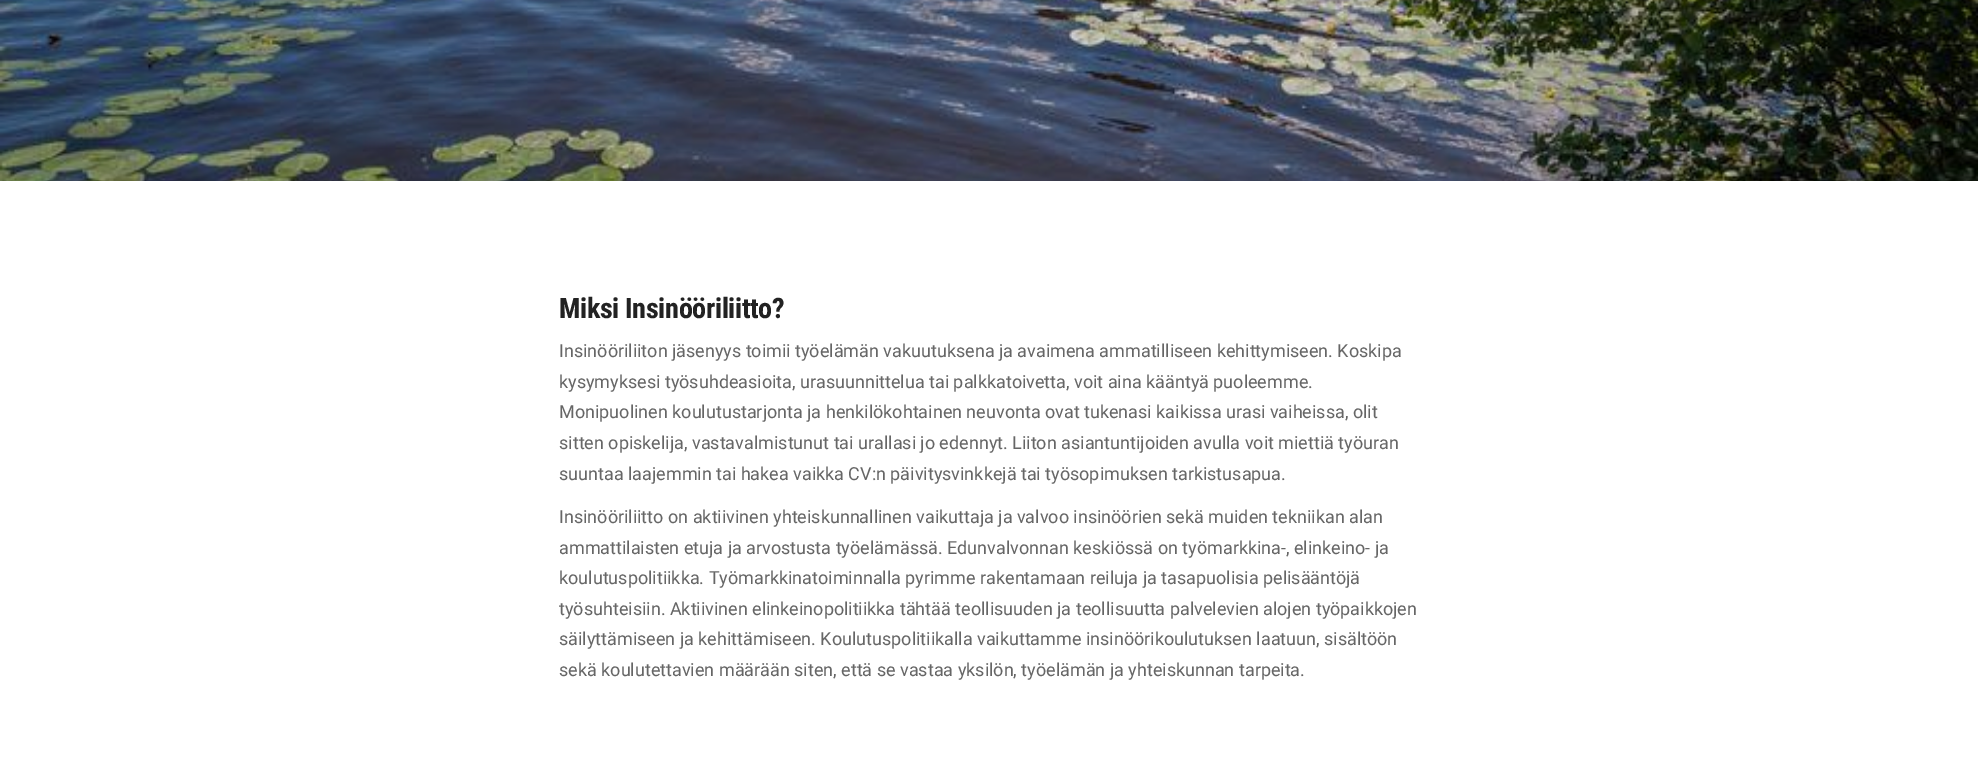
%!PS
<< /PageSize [1978 761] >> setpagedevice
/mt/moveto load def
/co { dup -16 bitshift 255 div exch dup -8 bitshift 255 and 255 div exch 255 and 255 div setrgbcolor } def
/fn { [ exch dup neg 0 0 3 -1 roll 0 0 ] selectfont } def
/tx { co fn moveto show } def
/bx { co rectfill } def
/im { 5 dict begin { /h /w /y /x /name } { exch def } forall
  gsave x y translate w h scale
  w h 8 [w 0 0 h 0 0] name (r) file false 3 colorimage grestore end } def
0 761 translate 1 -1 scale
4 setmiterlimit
0 0 1978 761 16#FFFFFF bx
(media/1.raw) 0 0 1978 181 im
/RobotoCondensed-Bold 28.25 fn
16#222222 co
559 318 mt -.4 0 (Miksi Insinööriliitto?) ashow
(Insinööriliiton jäsenyys toimii työelämän vakuutuksena ja avaimena ammatilliseen kehittymiseen. Koskipa) 559 357 /Roboto-Regular 18 16#666666 tx
(kysymyksesi työsuhdeasioita, urasuunnittelua tai palkkatoivetta, voit aina kääntyä puoleemme.) 559 388 /Roboto-Regular 18 16#666666 tx
(Monipuolinen koulutustarjonta ja henkilökohtainen neuvonta ovat tukenasi kaikissa urasi vaiheissa, olit) 559 418 /Roboto-Regular 18 16#666666 tx
(sitten opiskelija, vastavalmistunut tai urallasi jo edennyt. Liiton asiantuntijoiden avulla voit miettiä työuran) 559 449 /Roboto-Regular 18 16#666666 tx
(suuntaa laajemmin tai hakea vaikka CV:n päivitysvinkkejä tai työsopimuksen tarkistusapua.) 559 480 /Roboto-Regular 18 16#666666 tx
(Insinööriliitto on aktiivinen yhteiskunnallinen vaikuttaja ja valvoo insinöörien sekä muiden tekniikan alan) 559 523 /Roboto-Regular 18 16#666666 tx
(ammattilaisten etuja ja arvostusta työelämässä. Edunvalvonnan keskiössä on työmarkkina-, elinkeino- ja) 559 554 /Roboto-Regular 18 16#666666 tx
(koulutuspolitiikka. Työmarkkinatoiminnalla pyrimme rakentamaan reiluja ja tasapuolisia pelisääntöjä) 559 584 /Roboto-Regular 18 16#666666 tx
(työsuhteisiin. Aktiivinen elinkeinopolitiikka tähtää teollisuuden ja teollisuutta palvelevien alojen työpaikkojen) 559 615 /Roboto-Regular 18 16#666666 tx
(säilyttämiseen ja kehittämiseen. Koulutuspolitiikalla vaikuttamme insinöörikoulutuksen laatuun, sisältöön) 559 645 /Roboto-Regular 18 16#666666 tx
(sekä koulutettavien määrään siten, että se vastaa yksilön, työelämän ja yhteiskunnan tarpeita.) 559 676 /Roboto-Regular 18 16#666666 tx
showpage
